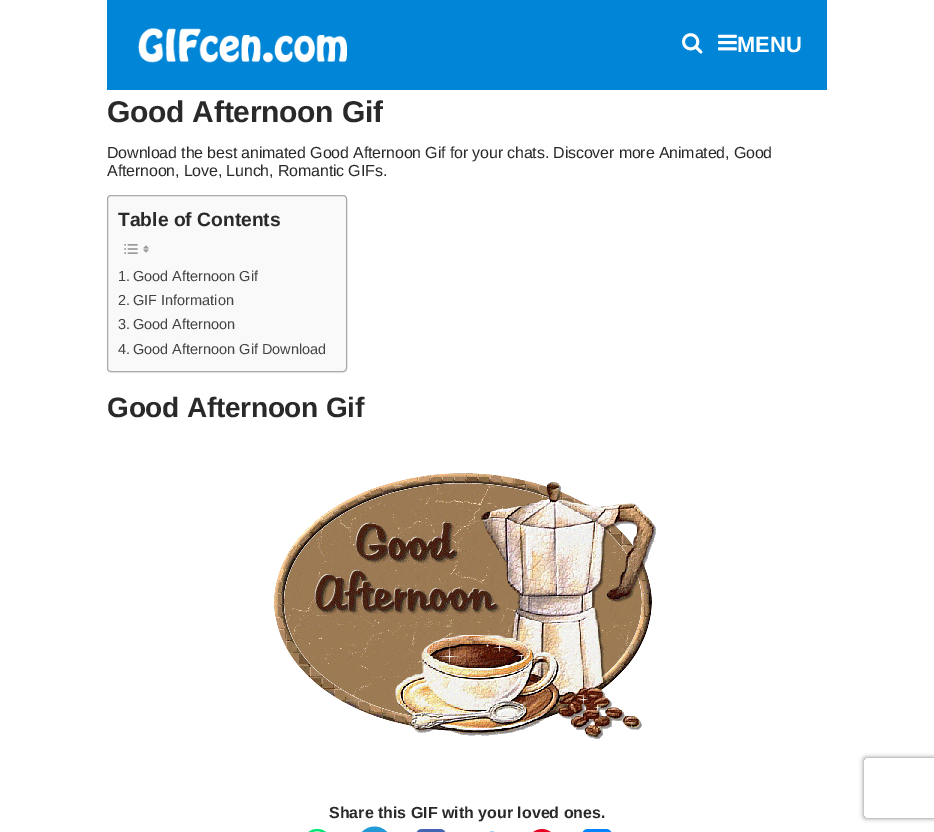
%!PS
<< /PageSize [934 832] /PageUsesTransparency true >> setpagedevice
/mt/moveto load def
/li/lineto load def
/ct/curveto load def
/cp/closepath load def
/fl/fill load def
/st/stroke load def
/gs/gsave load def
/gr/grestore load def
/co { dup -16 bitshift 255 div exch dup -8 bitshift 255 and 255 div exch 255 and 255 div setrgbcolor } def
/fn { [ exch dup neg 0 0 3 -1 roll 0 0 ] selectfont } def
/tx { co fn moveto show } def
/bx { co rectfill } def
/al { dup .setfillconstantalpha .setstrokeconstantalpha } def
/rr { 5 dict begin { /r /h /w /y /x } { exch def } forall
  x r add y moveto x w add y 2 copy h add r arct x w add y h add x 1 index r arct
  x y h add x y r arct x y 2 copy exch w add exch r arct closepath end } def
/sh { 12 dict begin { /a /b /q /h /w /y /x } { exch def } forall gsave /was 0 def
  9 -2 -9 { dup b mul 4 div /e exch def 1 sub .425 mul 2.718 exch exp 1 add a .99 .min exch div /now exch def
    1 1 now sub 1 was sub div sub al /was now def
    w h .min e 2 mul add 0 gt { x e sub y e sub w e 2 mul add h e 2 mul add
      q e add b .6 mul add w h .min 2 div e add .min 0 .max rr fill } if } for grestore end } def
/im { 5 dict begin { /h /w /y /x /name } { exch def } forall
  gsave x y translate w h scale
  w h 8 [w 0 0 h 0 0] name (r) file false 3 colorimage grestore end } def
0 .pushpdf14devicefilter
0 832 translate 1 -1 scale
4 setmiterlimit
0 0 934 832 16#FFFFFF bx
107 0 720 90 16#0085D7 bx
(media/1.raw) 138 28 209 35 im
(media/2.raw) 682 33 21 21 im
(media/3.raw) 718 34 19 17 im
16#000000 co
107 196 240 177 4 .5 .05 sh
16#F9F9F9 co
107.5 195.5 239 176 3.5 rr gs fl gr
16#AAAAAA co
st
(media/4.raw) 124 244 14 10 im
(media/5.raw) 143 245 6 8 im
(media/6.raw) 274 473 382 266 im
(media/7.raw) 308 828 18 4 im
(media/8.raw) 361 826 27 6 im
(media/9.raw) 416 829 30 3 im
(media/10.raw) 489 831 6 1 im
(media/11.raw) 533 829 18 3 im
(media/12.raw) 582 829 30 3 im
gs
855 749 mt 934 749 li 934 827 li 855 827 li cp 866 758 mt 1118 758 li 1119 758 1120 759 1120 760 ct 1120 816 li 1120 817 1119 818 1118 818 ct 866 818 li 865 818 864 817 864 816 ct 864 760 li 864 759 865 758 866 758 ct cp eoclip newpath
16#808080 co
864 758 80 60 2 2.5 1 sh
gr
(MENU) 737 52 /LiberationSans-Bold 22 16#FFFFFF tx
/LiberationSans-Bold 30 fn
16#292929 co
107 122 mt -.25 0 (Good Afternoon Gif) ashow
/LiberationSans-Regular 16 fn
107 158 mt -.15 0 (Download the best animated Good Afternoon Gif for your chats. Discover more Animated, Good) ashow
107 176 mt -.15 0 (Afternoon, Love, Lunch, Romantic GIFs.) ashow
(Table of Contents) 118 226 /LiberationSans-Bold 19.25 16#292929 tx
(1.) 118 281 /LiberationSans-Regular 14.5 16#444444 tx
(Good Afternoon Gif) 133 281 /LiberationSans-Regular 14.5 16#444444 tx
(2.) 118 305 /LiberationSans-Regular 14.5 16#444444 tx
(GIF Information) 133 305 /LiberationSans-Regular 14.5 16#444444 tx
(3.) 118 329 /LiberationSans-Regular 14.5 16#444444 tx
(Good Afternoon) 133 329 /LiberationSans-Regular 14.5 16#444444 tx
(4.) 118 354 /LiberationSans-Regular 14.5 16#444444 tx
(Good Afternoon Gif Download) 133 354 /LiberationSans-Regular 14.5 16#444444 tx
/LiberationSans-Bold 28 fn
16#292929 co
107 417 mt -.25 0 (Good Afternoon Gif) ashow
(Share this GIF with your loved ones.) 329 818 /LiberationSans-Bold 16 16#292929 tx
.poppdf14devicefilter showpage
